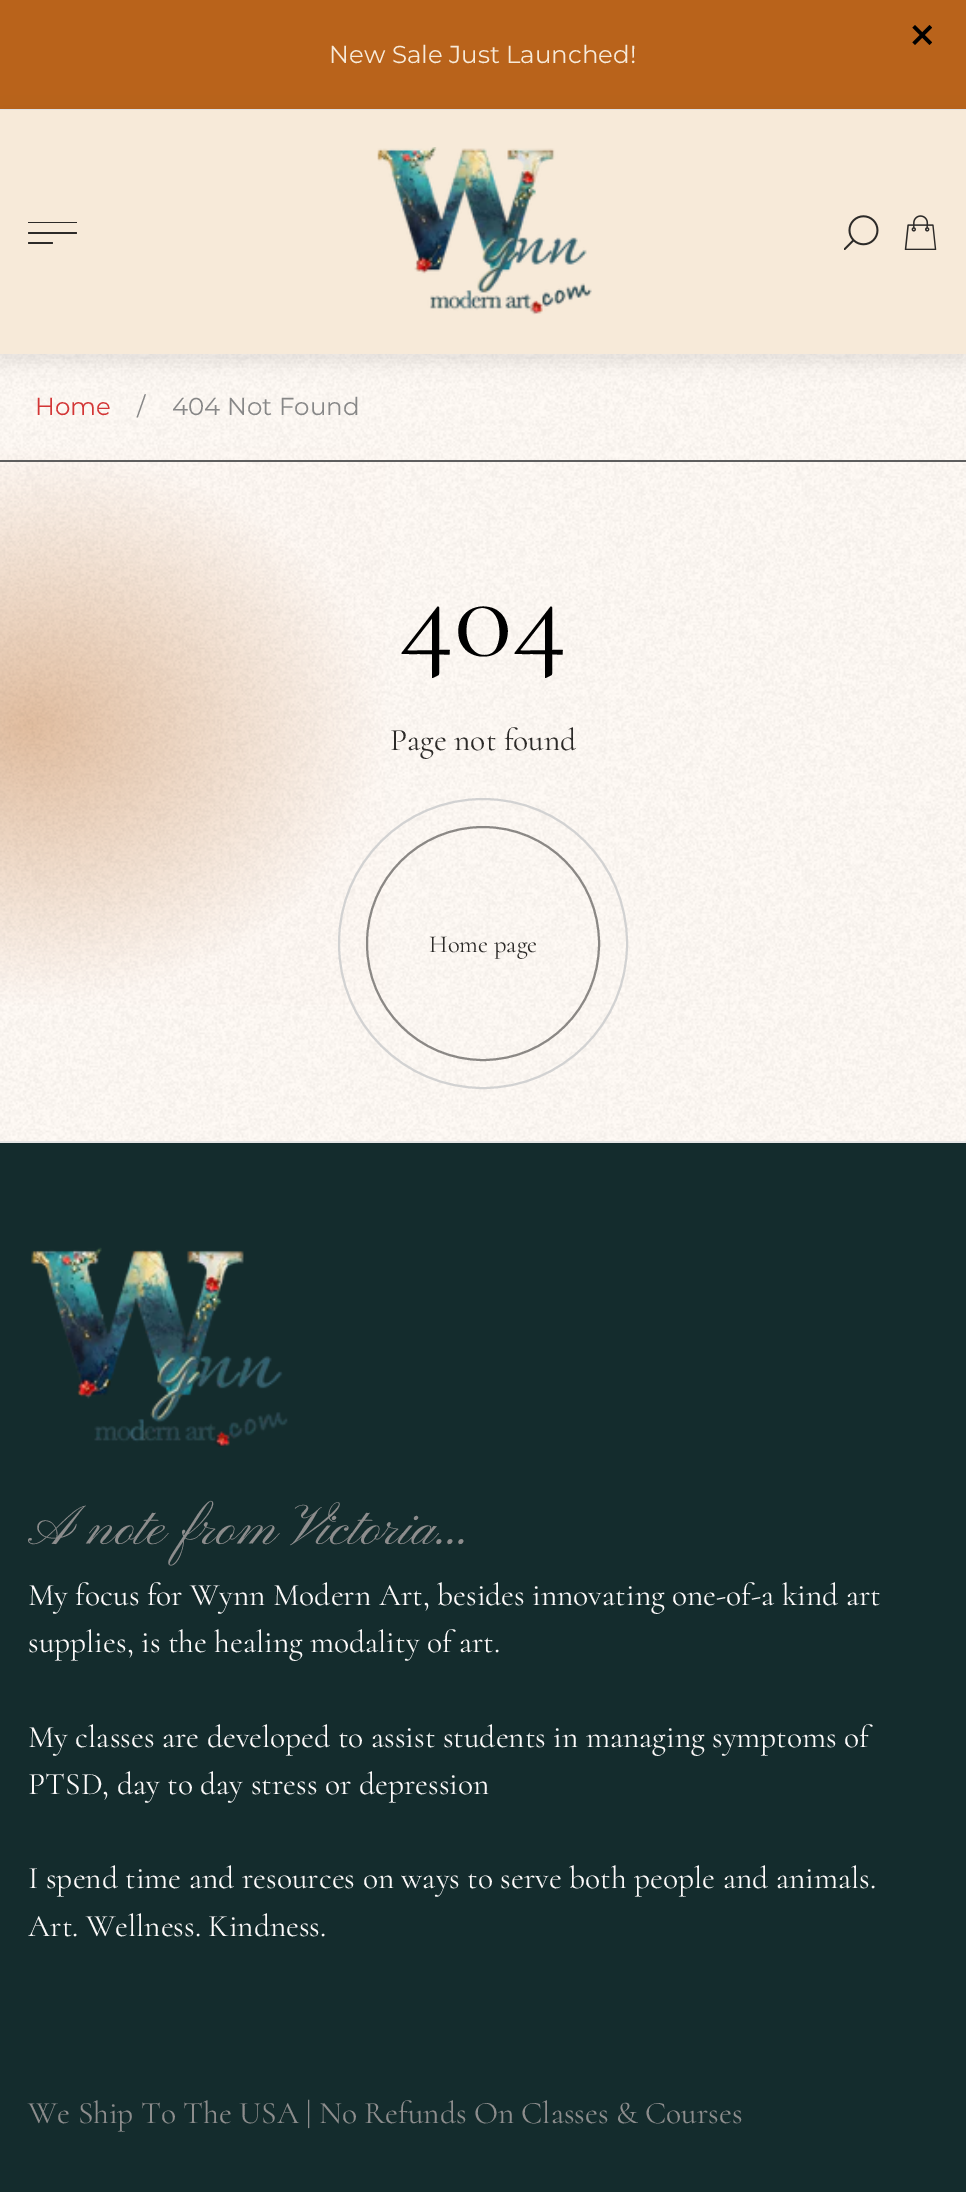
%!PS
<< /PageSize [966 2192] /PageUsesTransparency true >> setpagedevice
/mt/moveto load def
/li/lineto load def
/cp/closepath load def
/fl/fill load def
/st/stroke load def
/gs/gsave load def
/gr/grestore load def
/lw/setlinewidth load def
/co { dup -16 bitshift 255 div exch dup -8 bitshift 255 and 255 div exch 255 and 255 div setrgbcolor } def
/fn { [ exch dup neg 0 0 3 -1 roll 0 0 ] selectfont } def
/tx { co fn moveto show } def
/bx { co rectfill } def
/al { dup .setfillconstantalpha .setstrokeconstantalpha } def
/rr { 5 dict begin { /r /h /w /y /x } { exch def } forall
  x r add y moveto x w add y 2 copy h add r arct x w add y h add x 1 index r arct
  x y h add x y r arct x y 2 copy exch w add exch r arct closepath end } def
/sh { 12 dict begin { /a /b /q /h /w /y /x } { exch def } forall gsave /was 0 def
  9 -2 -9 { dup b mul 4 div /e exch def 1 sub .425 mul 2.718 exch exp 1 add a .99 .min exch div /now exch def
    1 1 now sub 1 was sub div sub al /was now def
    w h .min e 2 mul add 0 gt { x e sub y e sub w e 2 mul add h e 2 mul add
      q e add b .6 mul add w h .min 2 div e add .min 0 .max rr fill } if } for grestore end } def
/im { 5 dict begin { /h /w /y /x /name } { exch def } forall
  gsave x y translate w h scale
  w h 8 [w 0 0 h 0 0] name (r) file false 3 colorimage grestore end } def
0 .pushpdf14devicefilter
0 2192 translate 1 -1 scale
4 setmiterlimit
0 0 966 2192 16#FFFAF5 bx
gs 0 453 mt 378 453 li 378 999 li 0 999 li cp clip newpath 28 726 translate 357 278 scale
<< /ShadingType 3 /ColorSpace /DeviceRGB /Coords [0 0 0 0 0 1] /Extend [true true] /Function << /FunctionType 2 /Domain [0 1] /C0 [.886 .745 .627] /C1 [1 .976 .957] /N 1 >> >> shfill gr
(media/1.raw) 0 354 966 787 im
0 0 966 109 16#B9631B bx
0 109 966 1 16#E6E6E6 bx
16#000000 co
929.5 25 mt 932 27.5 li 915 45 li 912.5 42.5 li cp fl
912.5 27.5 mt 915 25 li 932 42.5 li 929.5 45 li cp fl
0 117 966 244 0 9.5 .1 sh
0 110 966 244 16#F7EAD9 bx
16#2C2A28 co
28 222 49 1 .5 rr fl
28 232 49 2 1 rr fl
28 242 25 2 1 rr fl
(media/2.raw) 377 147 215 168 im
(media/3.raw) 844 215 35 35 im
(media/4.raw) 904 215 33 35 im
0 460 966 2 16#5E5E5E bx
16#D2D2D2 co
2 lw
339 799 288 289 144 rr st
16#8B8885 co
367 827 232 233 116 rr st
0 1143 966 1049 16#142C2D bx
0 1141 966 2 16#E6E6E6 bx
(media/5.raw) 31 1247 257 200 im
(New Sale Just Launched!) 329 63 /Montserrat-Regular 24.5 16#F7EAD9 tx
(Home) 35 415 /Montserrat-Regular 24.5 16#D33636 tx
(/) 137 415 /Montserrat-Regular 24.5 16#878787 tx
(404 Not Found) 172 415 /Montserrat-Regular 24.5 16#878787 tx
(404) 399 655 /Cormorant-Regular 122 16#000000 tx
(Page not found) 390 750 /Cormorant-Regular 31.5 16#2C2A28 tx
(Home page) 429 952 /Cormorant-Regular 24.5 16#2C2A28 tx
(A note from Victoria...) 28 1544 /PinyonScript-Regular 56 16#8D8D8D tx
(My focus for Wynn Modern Art, besides innovating one-of-a kind art) 28 1605 /Cormorant-Regular 31.5 16#FCF9F9 tx
(supplies, is the healing modality of art.) 28 1652 /Cormorant-Regular 31.5 16#FCF9F9 tx
(My classes are developed to assist students in managing symptoms of) 28 1747 /Cormorant-Regular 31.5 16#FCF9F9 tx
(PTSD, day to day stress or depression) 28 1794 /Cormorant-Regular 31.5 16#FCF9F9 tx
(I spend time and resources on ways to serve both people and animals.) 28 1888 /Cormorant-Regular 31.5 16#FCF9F9 tx
(Art. Wellness. Kindness.) 28 1936 /Cormorant-Regular 31.5 16#FCF9F9 tx
(We Ship To The USA | No Refunds On Classes & Courses) 28 2123 /Cormorant-Regular 31.5 16#8D8D8D tx
.poppdf14devicefilter showpage
